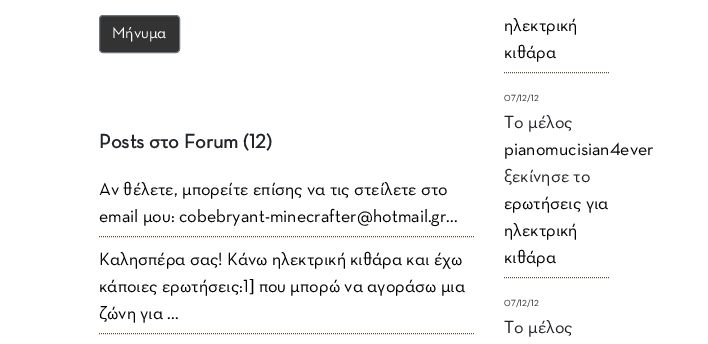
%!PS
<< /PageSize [708 344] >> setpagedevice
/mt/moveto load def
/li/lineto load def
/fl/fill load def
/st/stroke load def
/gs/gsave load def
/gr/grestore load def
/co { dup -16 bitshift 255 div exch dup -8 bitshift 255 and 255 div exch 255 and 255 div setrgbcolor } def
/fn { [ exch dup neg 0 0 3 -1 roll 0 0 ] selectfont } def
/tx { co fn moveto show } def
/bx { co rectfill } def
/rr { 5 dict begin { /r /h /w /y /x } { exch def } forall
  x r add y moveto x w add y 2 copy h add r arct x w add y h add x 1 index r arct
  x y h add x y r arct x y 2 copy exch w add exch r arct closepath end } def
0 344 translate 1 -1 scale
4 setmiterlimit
0 0 708 344 16#FFFFFF bx
16#333333 co
99.5 15.5 80 37 3.5 rr gs fl gr
16#6C757D co
st
16#5F4E33 co
[1 1] 0 setdash
99 236.5 mt 474 236.5 li st
99 333.5 mt 474 333.5 li st
504 72.5 mt 609 72.5 li st
504 277.5 mt 609 277.5 li st
(Μήνυμα) 112 38 /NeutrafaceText-Regular 16 16#FFFFFF tx
(Posts στο Forum \(12\)) 99 148 /NeutrafaceText-Bold 20 16#212529 tx
(Αν θέλετε, μπορείτε επίσης να τις στείλετε στο) 99 195 /NeutrafaceText-Regular 18 16#000000 tx
(email μου: cobebryant-minecrafter@hotmail.gr...) 99 222 /NeutrafaceText-Regular 18 16#000000 tx
(Καλησπέρα σας! Κάνω ηλεκτρική κιθάρα και έχω) 99 265 /NeutrafaceText-Regular 18 16#000000 tx
(κάποιες ερωτήσεις:1] που μπορώ να αγοράσω μια) 99 292 /NeutrafaceText-Regular 18 16#000000 tx
(ζώνη για ...) 99 319 /NeutrafaceText-Regular 18 16#000000 tx
(ηλεκτρική) 504 31 /NeutrafaceText-Regular 18 16#000000 tx
(κιθάρα) 504 58 /NeutrafaceText-Regular 18 16#000000 tx
(07/12/12) 504 101 /NeutrafaceText-Regular 9 16#212529 tx
(Το μέλος) 504 128 /NeutrafaceText-Regular 18 16#212529 tx
(pianomucisian4ever) 504 155 /NeutrafaceText-Regular 18 16#000000 tx
(ξεκίνησε το) 504 182 /NeutrafaceText-Regular 18 16#212529 tx
(ερωτήσεις για) 504 209 /NeutrafaceText-Regular 18 16#000000 tx
(ηλεκτρική) 504 236 /NeutrafaceText-Regular 18 16#000000 tx
(κιθάρα) 504 263 /NeutrafaceText-Regular 18 16#000000 tx
(07/12/12) 504 306 /NeutrafaceText-Regular 9 16#212529 tx
(Το μέλος) 504 333 /NeutrafaceText-Regular 18 16#212529 tx
showpage
